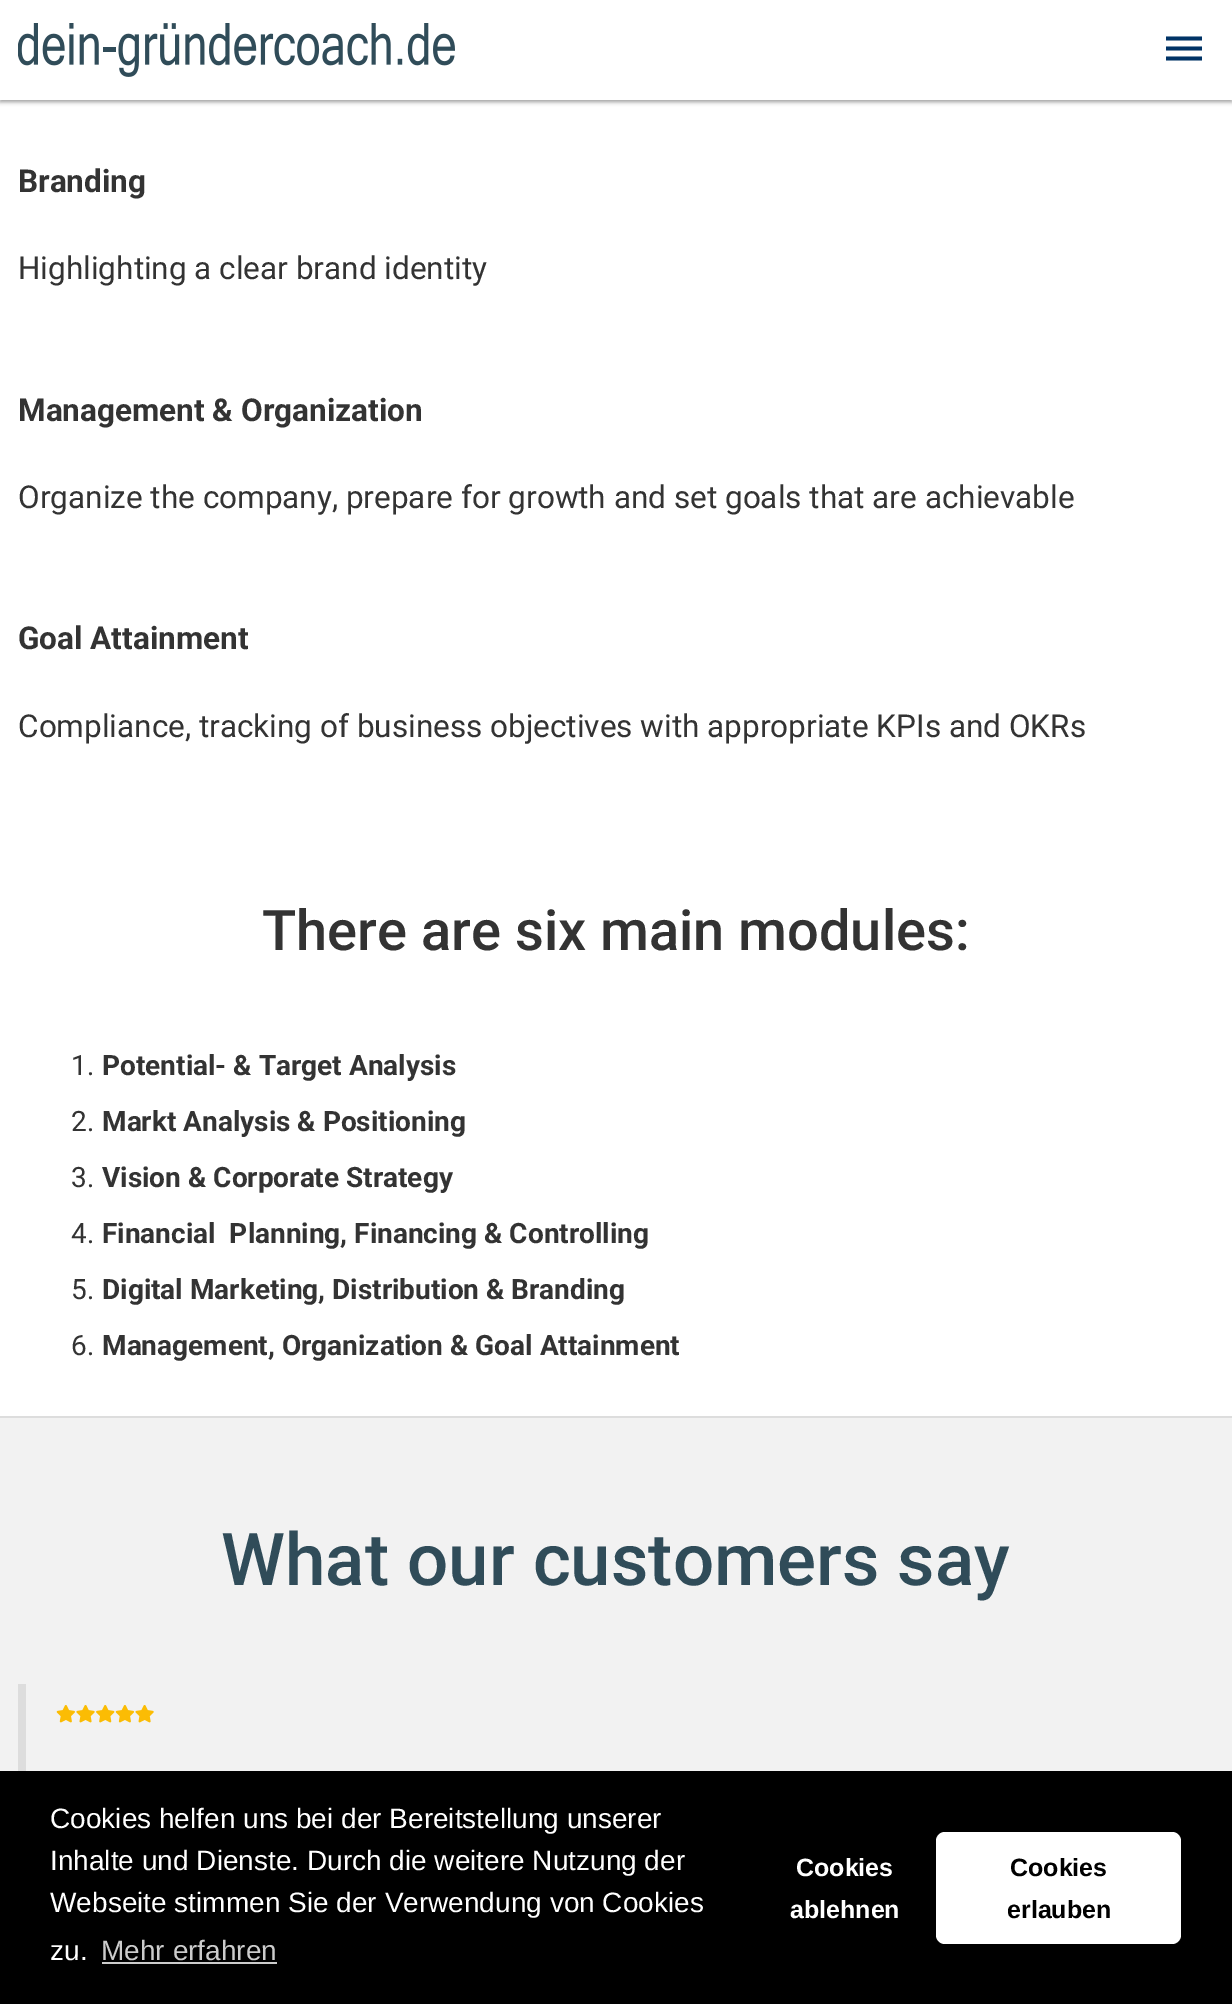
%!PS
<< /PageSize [1232 2004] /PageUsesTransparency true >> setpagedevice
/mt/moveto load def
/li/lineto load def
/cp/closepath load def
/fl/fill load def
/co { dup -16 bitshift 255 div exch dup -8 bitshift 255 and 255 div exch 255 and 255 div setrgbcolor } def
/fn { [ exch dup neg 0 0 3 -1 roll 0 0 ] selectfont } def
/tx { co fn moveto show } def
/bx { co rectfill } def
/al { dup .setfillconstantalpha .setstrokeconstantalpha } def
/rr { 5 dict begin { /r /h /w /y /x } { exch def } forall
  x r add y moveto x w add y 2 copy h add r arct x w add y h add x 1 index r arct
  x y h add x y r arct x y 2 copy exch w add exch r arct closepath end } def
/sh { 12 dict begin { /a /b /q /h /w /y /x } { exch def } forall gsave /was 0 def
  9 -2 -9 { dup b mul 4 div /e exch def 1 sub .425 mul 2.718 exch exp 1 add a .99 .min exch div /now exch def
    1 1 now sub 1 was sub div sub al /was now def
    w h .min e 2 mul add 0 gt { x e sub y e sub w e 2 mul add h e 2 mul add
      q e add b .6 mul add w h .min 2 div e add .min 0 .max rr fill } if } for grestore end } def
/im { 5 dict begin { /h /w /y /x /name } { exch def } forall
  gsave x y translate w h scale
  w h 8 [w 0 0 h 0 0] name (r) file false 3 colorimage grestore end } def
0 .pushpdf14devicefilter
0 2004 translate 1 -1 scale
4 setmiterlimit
0 0 1232 2004 16#FFFFFF bx
16#000000 co
0 2 1232 100 0 2 .2 sh
0 2 1232 100 0 2 .2 sh
0 0 1232 100 16#FFFFFF bx
(media/1.raw) 18 23 437 54 im
16#003366 co
1166 36.5 mt 1202 36.5 li 1202 40.5 li 1166 40.5 li cp 1166 50.5 mt 1166 46.5 li 1202 46.5 li 1202 50.5 li cp 1166 60.5 mt 1166 56.5 li 1202 56.5 li 1202 60.5 li cp fl
0 1416 1232 2 16#DDDDDD bx
0 1418 1232 353 16#F2F2F2 bx
18 1684 8 87 16#DDDDDD bx
(media/2.raw) 56 1705 98 18 im
0 1771 1232 233 16#000000 bx
102 1962 175 2 16#CCCCCC bx
16#FFFFFF co
936 1832 245 112 9 rr fl
(Branding) 18 192 /Roboto-Bold 31.5 16#333333 tx
(Highlighting a clear brand identity) 18 279 /Roboto-Regular 31.5 16#333333 tx
(Management & Organization) 18 421 /Roboto-Bold 31.5 16#333333 tx
(Organize the company, prepare for growth and set goals that are achievable) 18 508 /Roboto-Regular 31.5 16#333333 tx
(Goal Attainment) 18 649 /Roboto-Bold 31.5 16#333333 tx
(Compliance, tracking of business objectives with appropriate KPIs and OKRs) 18 737 /Roboto-Regular 31.5 16#333333 tx
(There are six main modules:) 262 950 /Roboto-Medium 56 16#333333 tx
(1.) 71 1075 /Roboto-Regular 28 16#333333 tx
(Potential- & Target Analysis) 102 1075 /Roboto-Bold 28 16#333333 tx
(2.) 71 1131 /Roboto-Regular 28 16#333333 tx
(Markt Analysis & Positioning) 102 1131 /Roboto-Bold 28 16#333333 tx
(3.) 71 1187 /Roboto-Regular 28 16#333333 tx
(Vision & Corporate Strategy) 102 1187 /Roboto-Bold 28 16#333333 tx
(4.) 71 1243 /Roboto-Regular 28 16#333333 tx
(Financial  Planning, Financing & Controlling) 102 1243 /Roboto-Bold 28 16#333333 tx
(5.) 71 1299 /Roboto-Regular 28 16#333333 tx
(Digital Marketing, Distribution & Branding) 102 1299 /Roboto-Bold 28 16#333333 tx
(6.) 71 1355 /Roboto-Regular 28 16#333333 tx
(Management, Organization & Goal Attainment) 102 1355 /Roboto-Bold 28 16#333333 tx
(What our customers say) 221 1585 /Roboto-Medium 72.75 16#304C59 tx
(Cookies helfen uns bei der Bereitstellung unserer) 50 1828 /LiberationSans-Regular 28 16#FFFFFF tx
(Inhalte und Dienste. Durch die weitere Nutzung der) 50 1870 /LiberationSans-Regular 28 16#FFFFFF tx
(Webseite stimmen Sie der Verwendung von Cookies) 50 1912 /LiberationSans-Regular 28 16#FFFFFF tx
(zu.) 50 1960 /LiberationSans-Regular 28 16#FFFFFF tx
(Mehr erfahren) 101 1960 /LiberationSans-Regular 28 16#CCCCCC tx
(Cookies) 796 1876 /LiberationSans-Bold 25 16#FFFFFF tx
(ablehnen) 790 1918 /LiberationSans-Bold 25 16#FFFFFF tx
(Cookies) 1010 1876 /LiberationSans-Bold 25 16#000000 tx
(erlauben) 1007 1918 /LiberationSans-Bold 25 16#000000 tx
.poppdf14devicefilter showpage
